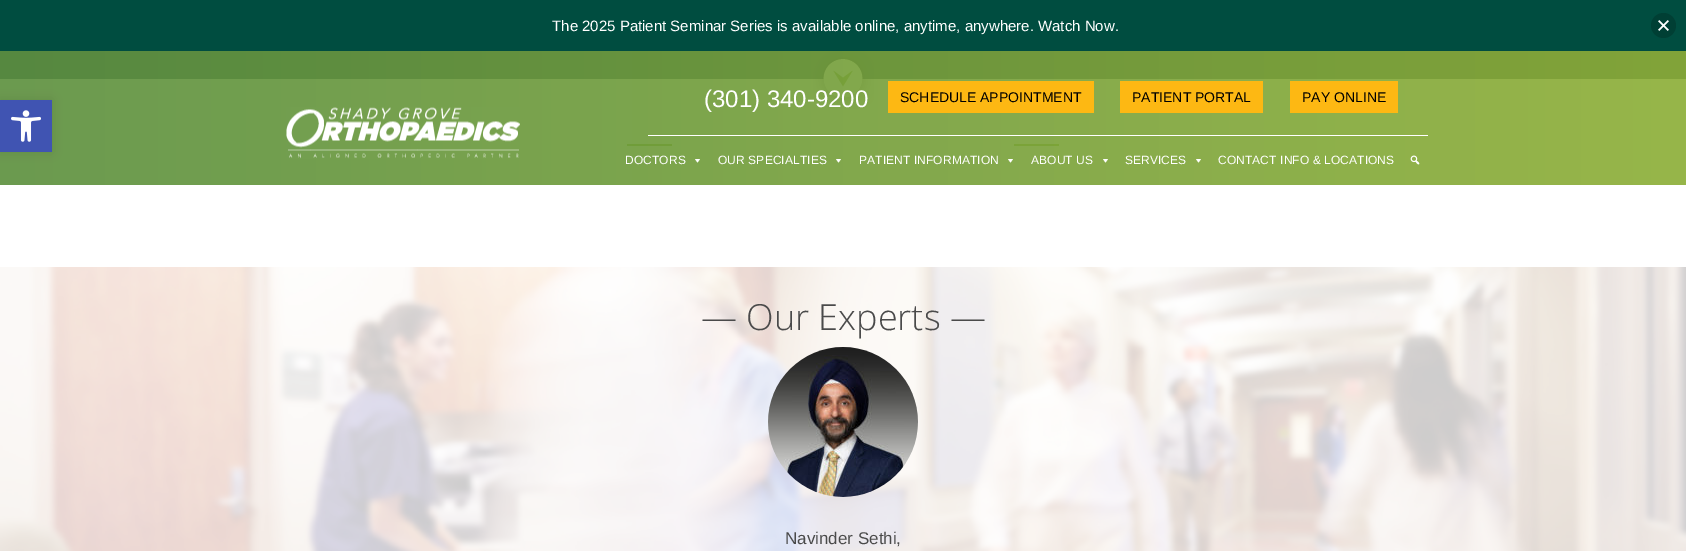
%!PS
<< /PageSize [1686 551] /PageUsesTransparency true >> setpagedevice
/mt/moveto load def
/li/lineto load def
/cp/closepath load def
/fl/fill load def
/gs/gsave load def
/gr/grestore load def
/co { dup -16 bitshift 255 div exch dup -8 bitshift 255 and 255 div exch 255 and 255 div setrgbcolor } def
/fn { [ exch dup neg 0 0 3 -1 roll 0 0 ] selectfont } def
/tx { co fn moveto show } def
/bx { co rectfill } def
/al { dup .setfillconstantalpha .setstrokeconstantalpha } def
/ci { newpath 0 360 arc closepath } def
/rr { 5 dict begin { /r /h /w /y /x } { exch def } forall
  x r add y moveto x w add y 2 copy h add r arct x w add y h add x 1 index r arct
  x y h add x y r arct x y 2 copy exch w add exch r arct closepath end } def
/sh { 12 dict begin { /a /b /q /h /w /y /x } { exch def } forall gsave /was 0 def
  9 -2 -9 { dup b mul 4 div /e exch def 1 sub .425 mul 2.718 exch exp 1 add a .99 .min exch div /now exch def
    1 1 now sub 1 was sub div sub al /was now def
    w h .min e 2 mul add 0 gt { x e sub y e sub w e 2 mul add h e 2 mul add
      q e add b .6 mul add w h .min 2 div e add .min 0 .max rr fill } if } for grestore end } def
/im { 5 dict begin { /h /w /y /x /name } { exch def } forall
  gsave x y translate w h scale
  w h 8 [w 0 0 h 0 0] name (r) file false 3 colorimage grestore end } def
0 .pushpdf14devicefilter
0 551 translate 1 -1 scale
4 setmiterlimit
0 0 1686 551 16#FFFFFF bx
0 0 1686 51 16#004D40 bx
16#003F34 co
1663.5 25.5 12.5 ci fl
(media/1.raw) 1658 20 11 11 im
0 51 1686 28 16#284862 bx
(media/5.raw) 813 51 61 58 im
627 144 45 2 16#8EB43B bx
1014 144 45 2 16#8EB43B bx
0.9 al
gs 0 51 mt 1686 51 li 1686 185 li 0 185 li cp clip newpath
<< /ShadingType 2 /ColorSpace /DeviceRGB /Coords [0 118 1686 118] /Extend [true true] /Function << /FunctionType 2 /Domain [0 1] /C0 [.357 .561 .239] /C1 [.549 .682 .208] /N 1 >> >> shfill gr
1 al
16#000000 co
0 100 52 52 0 5 .1 sh
0 100 52 52 16#4054B2 bx
(media/2.raw) 11 110 30 32 im
648 135 780 1 16#FFFFFF bx
888 81 206 32 16#FDB813 bx
1120 81 143 32 16#FDB813 bx
1290 81 108 32 16#FDB813 bx
(media/3.raw) 286 107 234 52 im
16#FFFFFF co
700 159 mt 697.5 162.5 li 695 159 li cp fl
841 159 mt 838.5 162.5 li 836 159 li cp fl
1013 159 mt 1010.5 162.5 li 1008 159 li cp fl
1108 159 mt 1105.5 162.5 li 1103 159 li cp fl
1201 159 mt 1198.5 162.5 li 1196 159 li cp fl
(media/4.raw) 1410 155 10 10 im
(media/6.raw) 0 267 1686 284 im
(media/7.raw) 768 347 150 150 im
(The 2025 Patient Seminar Series is available online, anytime, anywhere. Watch Now.) 552 31 /LiberationSans-Regular 15 16#FFFFFF tx
(\(301\) 340-9200) 704 107 /LiberationSans-Regular 24 16#FFFFFF tx
(SCHEDULE APPOINTMENT) 900 102 /LiberationSans-Regular 14 16#000000 tx
(PATIENT PORTAL) 1132 102 /LiberationSans-Regular 14 16#000000 tx
(PAY ONLINE) 1302 102 /LiberationSans-Regular 14 16#000000 tx
/LiberationSans-Regular 12 fn
16#FFFFFF co
625 164 mt .1 0 (DOCTORS) ashow
718 164 mt .1 0 (OUR SPECIALTIES) ashow
859 164 mt .1 0 (PATIENT INFORMATION) ashow
1031 164 mt .1 0 (ABOUT US) ashow
1125 164 mt .1 0 (SERVICES) ashow
1218 164 mt .1 0 (CONTACT INFO & LOCATIONS) ashow
(— Our Experts —) 701 330 /OpenSans-Light 36 16#4A4A4A tx
(Navinder Sethi,) 785 544 /LiberationSans-Regular 17 16#4A4A4A tx
.poppdf14devicefilter showpage
